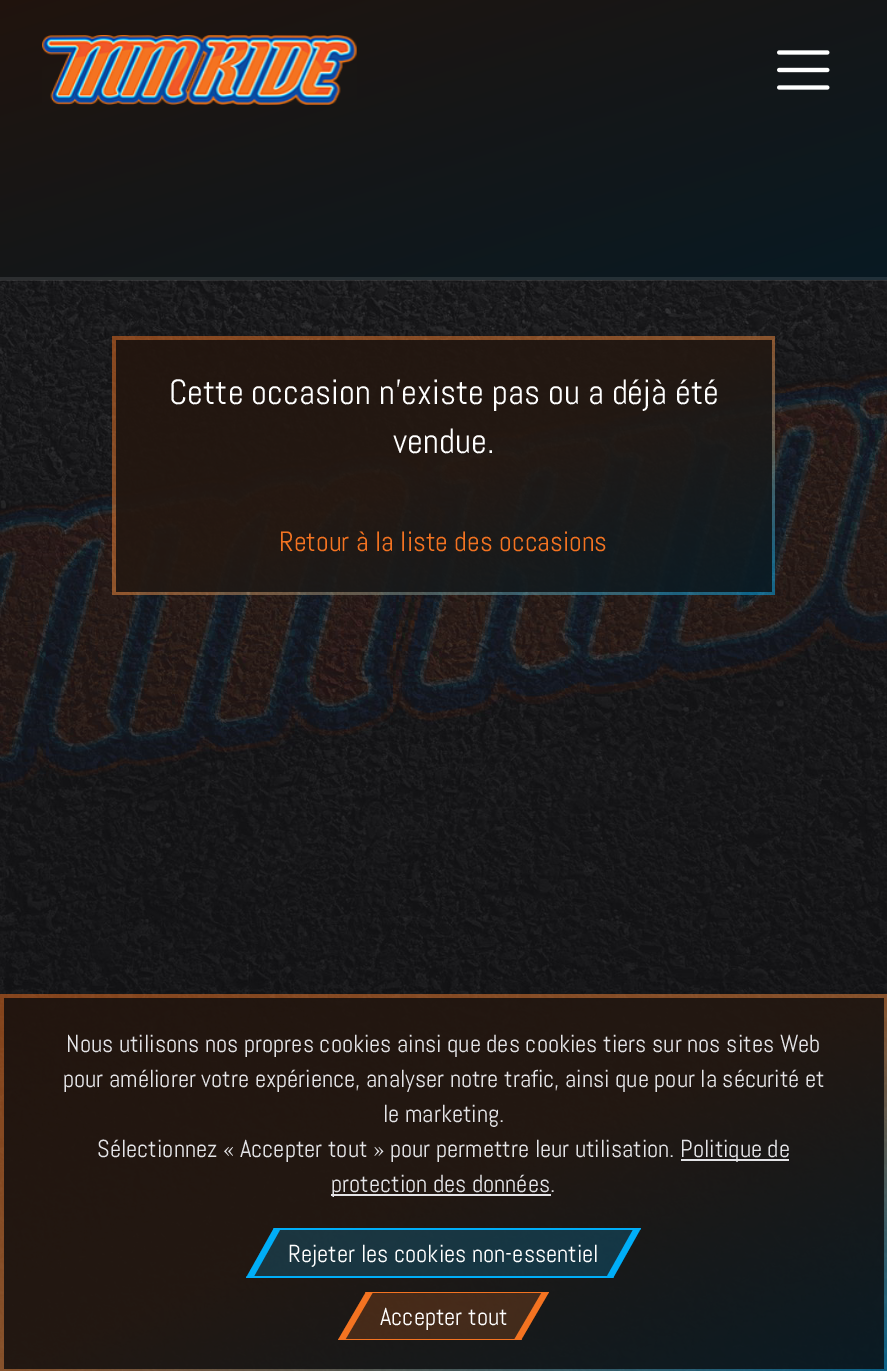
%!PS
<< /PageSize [887 1371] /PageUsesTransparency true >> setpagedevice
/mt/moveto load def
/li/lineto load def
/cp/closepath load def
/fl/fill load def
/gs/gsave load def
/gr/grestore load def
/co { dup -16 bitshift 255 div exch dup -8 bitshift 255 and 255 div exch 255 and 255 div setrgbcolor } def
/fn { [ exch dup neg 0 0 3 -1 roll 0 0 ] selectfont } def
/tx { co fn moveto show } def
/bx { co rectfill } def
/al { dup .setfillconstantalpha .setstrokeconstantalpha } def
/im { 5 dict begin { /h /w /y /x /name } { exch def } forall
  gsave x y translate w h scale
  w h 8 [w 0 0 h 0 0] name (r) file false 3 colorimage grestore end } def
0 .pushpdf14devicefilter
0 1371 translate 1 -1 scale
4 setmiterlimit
0 0 887 1371 16#18181B bx
gs 0 0 mt 887 0 li 887 280 li 0 280 li cp clip newpath
<< /ShadingType 2 /ColorSpace /DeviceRGB /Coords [363 -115 524 395] /Extend [true true] /Function << /FunctionType 2 /Domain [0 1] /C0 [.957 .451 .129] /C1 [0 .682 .973] /N 1 >> >> shfill gr
0.9 al
0 0 887 140 16#09090B bx
1 al
(media/1.raw) 42 35 315 70 im
(media/2.raw) 777 50 53 40 im
0.9 al
0 140 887 140 16#09090B bx
1 al
(media/3.raw) 0 280 887 1091 im
0.1 al
0 277 887 4 16#FFFFFF bx
0.5 al
gs 112 336 mt 775 336 li 775 595 li 112 595 li cp clip newpath
<< /ShadingType 2 /ColorSpace /DeviceRGB /Coords [356 241 531 690] /Extend [true true] /Function << /FunctionType 3 /Domain [0 1] /Functions [<< /FunctionType 2 /Domain [0 1] /C0 [.957 .451 .129] /C1 [.969 .557 .251] /N 1 >> << /FunctionType 2 /Domain [0 1] /C0 [.969 .557 .251] /C1 [0 .682 .973] /N 1 >>] /Bounds [.5] /Encode [0 1 0 1] >> >> shfill gr
0.8 al
116 340 656 252 16#09090B bx
0.5 al
gs 0 994 mt 887 994 li 887 1371 li 0 1371 li cp clip newpath
<< /ShadingType 2 /ColorSpace /DeviceRGB /Coords [307 863 580 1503] /Extend [true true] /Function << /FunctionType 3 /Domain [0 1] /Functions [<< /FunctionType 2 /Domain [0 1] /C0 [.957 .451 .129] /C1 [.969 .557 .251] /N 1 >> << /FunctionType 2 /Domain [0 1] /C0 [.969 .557 .251] /C1 [0 .682 .973] /N 1 >>] /Bounds [.5] /Encode [0 1 0 1] >> >> shfill gr
0.8 al
4 998 880 371 16#09090B bx
1 al
681 1159 108 2 16#E4E4E7 bx
331 1194 220 2 16#E4E4E7 bx
0.2 al
16#00AEF8 co
274 1228 mt 641 1228 li 613 1278 li 246 1278 li cp fl
1 al
274 1228 mt 641 1228 li 640 1230 li 273 1230 li cp fl
634 1228 mt 641 1228 li 613 1278 li 606 1278 li cp fl
247 1276 mt 614 1276 li 613 1278 li 246 1278 li cp fl
274 1228 mt 281 1228 li 253 1278 li 246 1278 li cp fl
0.2 al
16#F47321 co
366 1292 mt 549 1292 li 521 1340 li 338 1340 li cp fl
1 al
366 1292 mt 549 1292 li 548 1293 li 365 1293 li cp fl
542 1292 mt 549 1292 li 521 1340 li 514 1340 li cp fl
339 1339 mt 522 1339 li 521 1340 li 338 1340 li cp fl
366 1292 mt 373 1292 li 345 1340 li 338 1340 li cp fl
(Cette occasion n'existe pas ou a déjà été) 169 404 /Abel-Regular 35 16#FFFFFF tx
(vendue.) 393 453 /Abel-Regular 35 16#FFFFFF tx
(Retour à la liste des occasions) 279 551 /Abel-Regular 28 16#F47321 tx
(Nous utilisons nos propres cookies ainsi que des cookies tiers sur nos sites Web) 66 1052 /Abel-Regular 24.5 16#E4E4E7 tx
(pour améliorer votre expérience, analyser notre trafic, ainsi que pour la sécurité et) 63 1087 /Abel-Regular 24.5 16#E4E4E7 tx
(le marketing.) 383 1122 /Abel-Regular 24.5 16#E4E4E7 tx
(Sélectionnez « Accepter tout » pour permettre leur utilisation.) 97 1157 /Abel-Regular 24.5 16#E4E4E7 tx
(Politique de) 680 1157 /Abel-Regular 24.5 16#E4E4E7 tx
(protection des données.) 331 1192 /Abel-Regular 24.5 16#E4E4E7 tx
(Rejeter les cookies non-essentiel) 288 1262 /Abel-Regular 24.5 16#FFFFFF tx
(Accepter tout) 380 1325 /Abel-Regular 24.5 16#FFFFFF tx
.poppdf14devicefilter showpage
